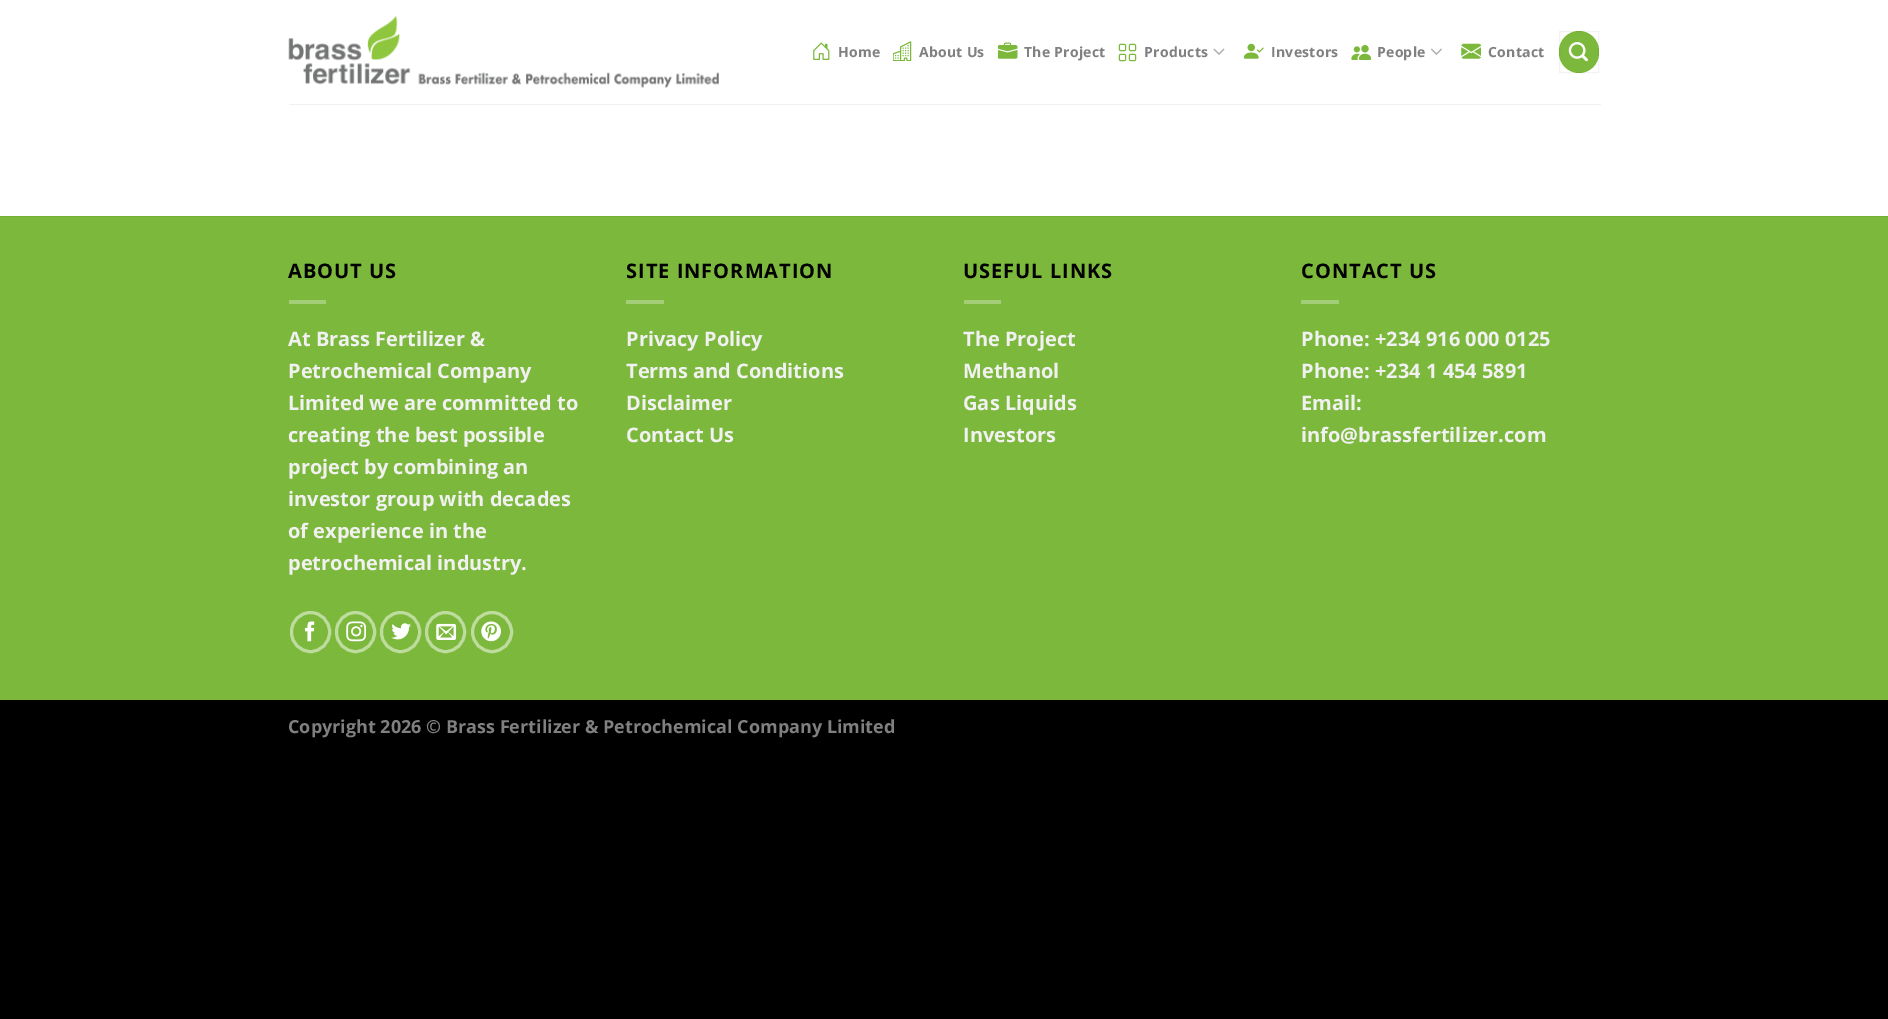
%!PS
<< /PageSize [1888 1019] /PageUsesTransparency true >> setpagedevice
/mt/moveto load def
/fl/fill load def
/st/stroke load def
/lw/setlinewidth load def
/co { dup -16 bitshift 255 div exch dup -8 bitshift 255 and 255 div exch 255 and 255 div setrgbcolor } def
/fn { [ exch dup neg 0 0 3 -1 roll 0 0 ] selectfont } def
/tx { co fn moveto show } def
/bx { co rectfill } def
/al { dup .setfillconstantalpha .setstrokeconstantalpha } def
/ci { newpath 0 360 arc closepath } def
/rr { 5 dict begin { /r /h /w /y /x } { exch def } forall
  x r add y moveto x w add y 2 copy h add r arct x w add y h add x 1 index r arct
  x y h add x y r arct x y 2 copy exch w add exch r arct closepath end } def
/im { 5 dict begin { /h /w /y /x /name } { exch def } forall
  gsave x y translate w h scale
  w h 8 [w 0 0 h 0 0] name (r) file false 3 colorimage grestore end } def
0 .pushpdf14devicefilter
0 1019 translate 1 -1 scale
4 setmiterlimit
0 0 1888 1019 16#000000 bx
0 0 1888 216 16#FFFFFF bx
(media/1.raw) 288 16 431 72 im
(media/2.raw) 813 42 17 18 im
(media/3.raw) 893 41 19 20 im
(media/4.raw) 998 42 20 17 im
(media/5.raw) 1118 43 19 19 im
(media/6.raw) 1213 48 12 7 im
(media/7.raw) 1244 43 20 16 im
(media/8.raw) 1351 45 20 15 im
(media/9.raw) 1431 48 11 7 im
(media/10.raw) 1461 43 20 16 im
16#7BB83B co
1559 31 40 42 20 rr fl
0.05 al
16#000000 co
1559.5 31.5 39 41 rectstroke
1 al
(media/11.raw) 1568 42 20 20 im
289 104 1312 1 16#F1F1F1 bx
0 217 1888 483 16#7BB83B bx
0 216 1888 1 16#75AF38 bx
289 300 37 4 16#A3CD76 bx
16#BDDC9D co
3 lw
291.5 612.5 38 39 19 rr st
(media/12.raw) 304 621 11 21 im
336.5 612.5 38 39 19 rr st
(media/13.raw) 346 621 20 21 im
381.5 612.5 38 39 19 rr st
(media/14.raw) 391 623 20 17 im
426.5 612.5 38 39 19 rr st
(media/15.raw) 436 623 21 17 im
492 632 19.5 ci st
(media/16.raw) 481 621 20 21 im
626 300 38 4 16#A3CD76 bx
964 300 37 4 16#A3CD76 bx
1301 300 38 4 16#A3CD76 bx
/OpenSans-Bold 14 fn
16#808080 co
838 57 mt .25 0 (Home) ashow
919 57 mt .25 0 (About Us) ashow
1024 57 mt .25 0 (The Project) ashow
1144 57 mt .25 0 (Products) ashow
1271 57 mt .25 0 (Investors) ashow
1377 57 mt .25 0 (People) ashow
1488 57 mt .25 0 (Contact) ashow
/OpenSans-Bold 20 fn
16#000000 co
288 278 mt 1 0 (ABOUT US) ashow
(At Brass Fertilizer &) 288 346 /OpenSans-Bold 20 16#F1F1F1 tx
(Petrochemical Company) 288 378 /OpenSans-Bold 20 16#F1F1F1 tx
(Limited we are committed to) 288 410 /OpenSans-Bold 20 16#F1F1F1 tx
(creating the best possible) 288 442 /OpenSans-Bold 20 16#F1F1F1 tx
(project by combining an) 288 474 /OpenSans-Bold 20 16#F1F1F1 tx
(investor group with decades) 288 506 /OpenSans-Bold 20 16#F1F1F1 tx
(of experience in the) 288 538 /OpenSans-Bold 20 16#F1F1F1 tx
(petrochemical industry.) 288 570 /OpenSans-Bold 20 16#F1F1F1 tx
16#000000 co
626 278 mt 1 0 (SITE INFORMATION) ashow
(Privacy Policy) 626 346 /OpenSans-Bold 20 16#F1F1F1 tx
(Terms and Conditions) 626 378 /OpenSans-Bold 20 16#F1F1F1 tx
(Disclaimer) 626 410 /OpenSans-Bold 20 16#F1F1F1 tx
(Contact Us) 626 442 /OpenSans-Bold 20 16#F1F1F1 tx
16#000000 co
963 278 mt 1 0 (USEFUL LINKS) ashow
(The Project) 963 346 /OpenSans-Bold 20 16#F1F1F1 tx
(Methanol) 963 378 /OpenSans-Bold 20 16#F1F1F1 tx
(Gas Liquids) 963 410 /OpenSans-Bold 20 16#F1F1F1 tx
(Investors) 963 442 /OpenSans-Bold 20 16#F1F1F1 tx
16#000000 co
1301 278 mt 1 0 (CONTACT US) ashow
(Phone: +234 916 000 0125) 1301 346 /OpenSans-Bold 20 16#F1F1F1 tx
(Phone: +234 1 454 5891) 1301 378 /OpenSans-Bold 20 16#F1F1F1 tx
(Email:) 1301 410 /OpenSans-Bold 20 16#F1F1F1 tx
(info@brassfertilizer.com) 1301 442 /OpenSans-Bold 20 16#F1F1F1 tx
(Copyright 2026 © Brass Fertilizer & Petrochemical Company Limited) 288 733 /OpenSans-Bold 18 16#808080 tx
.poppdf14devicefilter showpage
